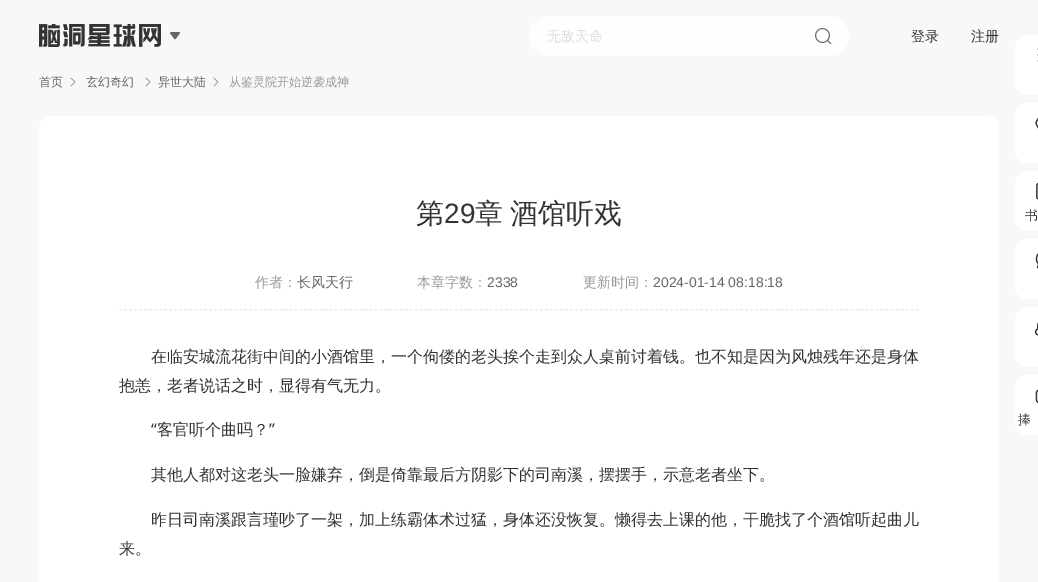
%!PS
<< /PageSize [1038 582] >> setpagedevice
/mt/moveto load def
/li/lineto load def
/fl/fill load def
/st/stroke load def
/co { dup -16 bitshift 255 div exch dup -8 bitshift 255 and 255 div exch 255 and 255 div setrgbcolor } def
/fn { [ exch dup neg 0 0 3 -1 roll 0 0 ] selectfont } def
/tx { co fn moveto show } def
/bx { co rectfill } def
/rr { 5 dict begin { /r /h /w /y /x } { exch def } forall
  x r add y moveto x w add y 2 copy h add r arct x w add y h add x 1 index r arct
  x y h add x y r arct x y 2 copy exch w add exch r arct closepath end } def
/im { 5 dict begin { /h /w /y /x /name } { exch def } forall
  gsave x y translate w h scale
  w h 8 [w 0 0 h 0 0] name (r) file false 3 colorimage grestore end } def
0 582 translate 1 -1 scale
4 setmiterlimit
0 0 1038 582 16#F6F8FA bx
(media/1.raw) 39 24 122 23 im
(media/2.raw) 170 32 10 8 im
16#FDFEFE co
529 16 320 40 20 rr fl
(media/3.raw) 815 28 17 17 im
(media/4.raw) 70 77 6 10 im
(media/4.raw) 145 77 6 10 im
(media/4.raw) 213 77 6 10 im
16#FFFFFF co
39 116 960 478 12 rr fl
16#E7E7E7 co
[3 2.01] 0 setdash
119 309.5 mt 919 309.5 li st
16#FFFFFF co
1015 35 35 60 12 rr fl
(media/5.raw) 1037 48 1 14 im
1015 103 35 60 12 rr fl
(media/6.raw) 1035 117 3 12 im
1015 171 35 60 12 rr fl
(media/7.raw) 1036 182 2 18 im
1015 239 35 60 12 rr fl
(media/8.raw) 1035 253 3 16 im
1015 307 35 60 12 rr fl
(media/9.raw) 1035 322 3 14 im
1015 375 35 60 12 rr fl
(media/10.raw) 1035 389 3 15 im
(无敌天命) 547 41 /WenQuanYiZenHei-Medium 14 16#DCDDDF tx
(登录) 911 41 /WenQuanYiZenHei-Medium 14 16#333333 tx
(注册) 971 41 /WenQuanYiZenHei-Medium 14 16#333333 tx
(首页) 39 86 /WenQuanYiZenHei-Medium 12 16#666666 tx
(玄幻奇幻) 86 86 /WenQuanYiZenHei-Medium 12 16#666666 tx
(异世大陆) 158 86 /WenQuanYiZenHei-Medium 12 16#666666 tx
(从鉴灵院开始逆袭成神) 229 86 /WenQuanYiZenHei-Medium 12 16#999999 tx
(第) 416 223 /WenQuanYiZenHei-Medium 28 16#333333 tx
(29) 444 223 /LiberationSans-Regular 28 16#333333 tx
/WenQuanYiZenHei-Medium 28 fn
475 223 mt -1 0 32 (章 酒馆听戏) widthshow
(作者：) 255 287 /WenQuanYiZenHei-Medium 14 16#999999 tx
(长风天行) 297 287 /WenQuanYiZenHei-Medium 14 16#666666 tx
(本章字数：) 417 287 /WenQuanYiZenHei-Medium 14 16#999999 tx
(2338) 487 287 /LiberationSans-Regular 14 16#666666 tx
(更新时间：) 583 287 /WenQuanYiZenHei-Medium 14 16#999999 tx
(2024-01-14 08:18:18) 653 287 /LiberationSans-Regular 14 16#666666 tx
(在临安城流花街中间的小酒馆里，一个佝偻的老头挨个走到众人桌前讨着钱。也不知是因为风烛残年还是身体) 151 362 /WenQuanYiZenHei-Medium 16 16#333333 tx
(抱恙，老者说话之时，显得有气无力。) 119 391 /WenQuanYiZenHei-Medium 16 16#333333 tx
(“) 151 435 /NotoSans-Regular 16 16#333333 tx
(客官听个曲吗？) 157 435 /WenQuanYiZenHei-Medium 16 16#333333 tx
(”) 269 435 /NotoSans-Regular 16 16#333333 tx
(其他人都对这老头一脸嫌弃，倒是倚靠最后方阴影下的司南溪，摆摆手，示意老者坐下。) 151 480 /WenQuanYiZenHei-Medium 16 16#333333 tx
(昨日司南溪跟言瑾吵了一架，加上练霸体术过猛，身体还没恢复。懒得去上课的他，干脆找了个酒馆听起曲儿) 151 525 /WenQuanYiZenHei-Medium 16 16#333333 tx
(来。) 119 554 /WenQuanYiZenHei-Medium 16 16#333333 tx
(书) 1025 220 /WenQuanYiZenHei-Medium 13 16#333333 tx
(捧) 1018 424 /WenQuanYiZenHei-Medium 13 16#333333 tx
showpage
